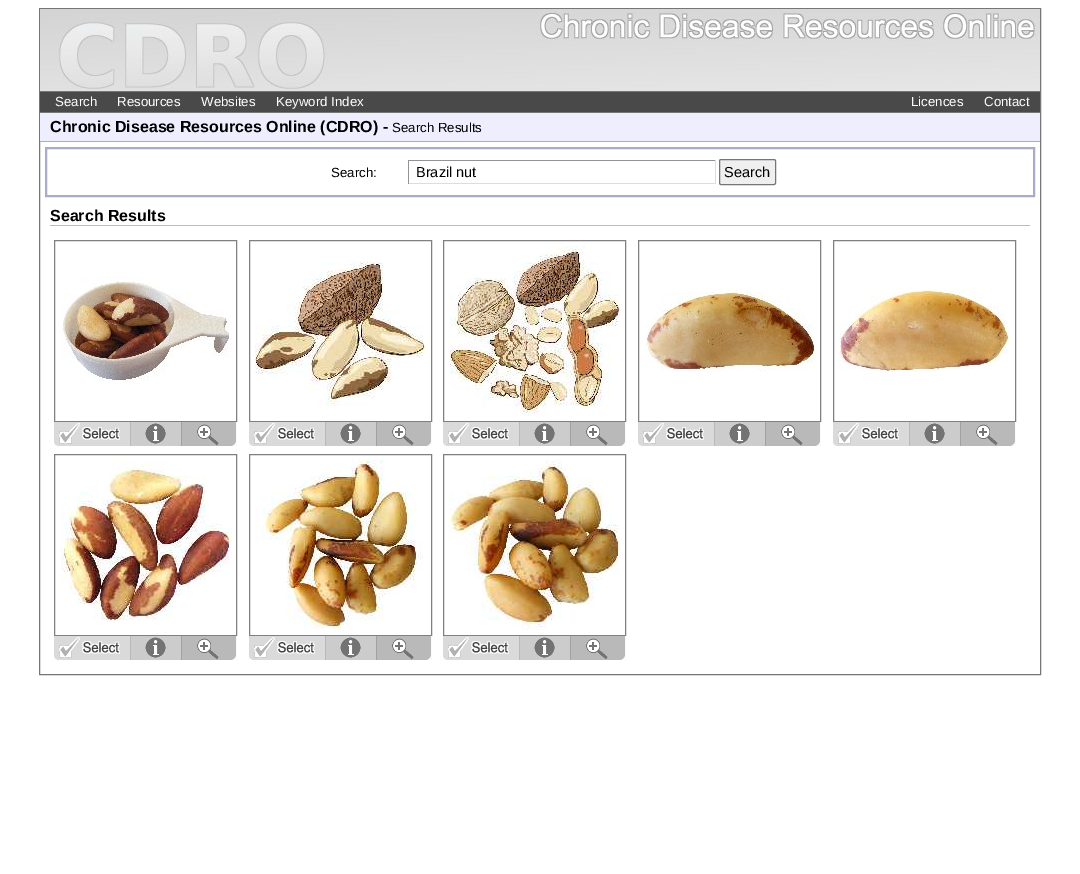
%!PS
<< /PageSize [1080 874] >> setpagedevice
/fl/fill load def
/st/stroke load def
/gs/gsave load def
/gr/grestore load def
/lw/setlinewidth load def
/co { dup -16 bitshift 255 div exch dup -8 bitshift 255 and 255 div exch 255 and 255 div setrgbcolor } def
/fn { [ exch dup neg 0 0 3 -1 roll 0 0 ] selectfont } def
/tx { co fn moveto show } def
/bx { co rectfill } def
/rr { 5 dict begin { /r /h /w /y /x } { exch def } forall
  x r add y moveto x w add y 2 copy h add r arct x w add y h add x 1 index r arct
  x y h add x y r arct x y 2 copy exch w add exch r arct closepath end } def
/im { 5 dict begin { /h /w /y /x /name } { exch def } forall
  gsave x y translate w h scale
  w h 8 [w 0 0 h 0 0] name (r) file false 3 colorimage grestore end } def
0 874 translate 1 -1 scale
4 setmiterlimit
0 0 1080 874 16#FFFFFF bx
16#767676 co
39.5 8.5 1001 666 rectstroke
(media/1.raw) 40 9 1000 82 im
40 92 1000 20 16#494949 bx
40 91 1000 1 16#767676 bx
40 112 1000 1 16#767676 bx
40 113 1000 28 16#EEEEFF bx
40 141 1000 1 16#AAAACC bx
2 lw
46 148 988 48 rectstroke
408 160 308 1 16#939393 bx
715 160 1 24 16#DDDDDD bx
408 183 308 1 16#DDDDDD bx
408 160 1 24 16#939393 bx
16#EFEFEF co
719.5 159.5 56 25 1.5 rr gs fl gr
16#767676 co
1 lw
st
50 225 980 1 16#BBBBBB bx
16#808080 co
54.5 240.5 182 181 rectstroke
(media/2.raw) 61 277 168 104 im
54 422 183 24 16#FAFAFA bx
(media/3.raw) 54 422 128 24 im
(media/4.raw) 182 422 54 24 im
16#808080 co
249.5 240.5 182 181 rectstroke
(media/5.raw) 255 262 170 144 im
249 422 183 24 16#FAFAFA bx
(media/3.raw) 249 422 128 24 im
(media/4.raw) 377 422 54 24 im
16#808080 co
443.5 240.5 182 181 rectstroke
(media/6.raw) 450 246 170 170 im
443 422 183 24 16#FAFAFA bx
(media/3.raw) 443 422 128 24 im
(media/4.raw) 571 422 54 24 im
16#808080 co
638.5 240.5 182 181 rectstroke
(media/7.raw) 645 292 170 79 im
638 422 183 24 16#FAFAFA bx
(media/3.raw) 638 422 128 24 im
(media/4.raw) 766 422 54 24 im
16#808080 co
833.5 240.5 182 181 rectstroke
(media/8.raw) 839 290 170 82 im
833 422 183 24 16#FAFAFA bx
(media/3.raw) 833 422 128 24 im
(media/4.raw) 961 422 54 24 im
16#808080 co
54.5 454.5 182 181 rectstroke
(media/9.raw) 61 460 170 161 im
54 636 183 24 16#FAFAFA bx
(media/3.raw) 54 636 128 24 im
(media/4.raw) 182 636 54 24 im
16#808080 co
249.5 454.5 182 181 rectstroke
(media/10.raw) 255 460 168 170 im
249 636 183 24 16#FAFAFA bx
(media/3.raw) 249 636 128 24 im
(media/4.raw) 377 636 54 24 im
16#808080 co
443.5 454.5 182 181 rectstroke
(media/11.raw) 450 460 170 170 im
443 636 183 24 16#FAFAFA bx
(media/3.raw) 443 636 128 24 im
(media/4.raw) 571 636 54 24 im
(Search) 55 106 /LiberationSans-Regular 13.25 16#FFFFFF tx
(Resources) 117 106 /LiberationSans-Regular 13.25 16#FFFFFF tx
(Websites) 201 106 /LiberationSans-Regular 13.25 16#FFFFFF tx
(Keyword Index) 276 106 /LiberationSans-Regular 13.25 16#FFFFFF tx
(Licences) 911 106 /LiberationSans-Regular 13.25 16#FFFFFF tx
(Contact) 984 106 /LiberationSans-Regular 13.25 16#FFFFFF tx
(Chronic Disease Resources Online \(CDRO\) -) 50 132 /LiberationSans-Bold 16 16#000000 tx
(Search Results) 392 132 /LiberationSans-Regular 13.25 16#000000 tx
(Search:) 331 177 /LiberationSans-Regular 13.25 16#000000 tx
(Brazil nut) 416 177 /LiberationSans-Regular 14.5 16#000000 tx
(Search) 724 177 /LiberationSans-Regular 14.5 16#000000 tx
(Search Results) 50 221 /LiberationSans-Bold 16 16#000000 tx
showpage
